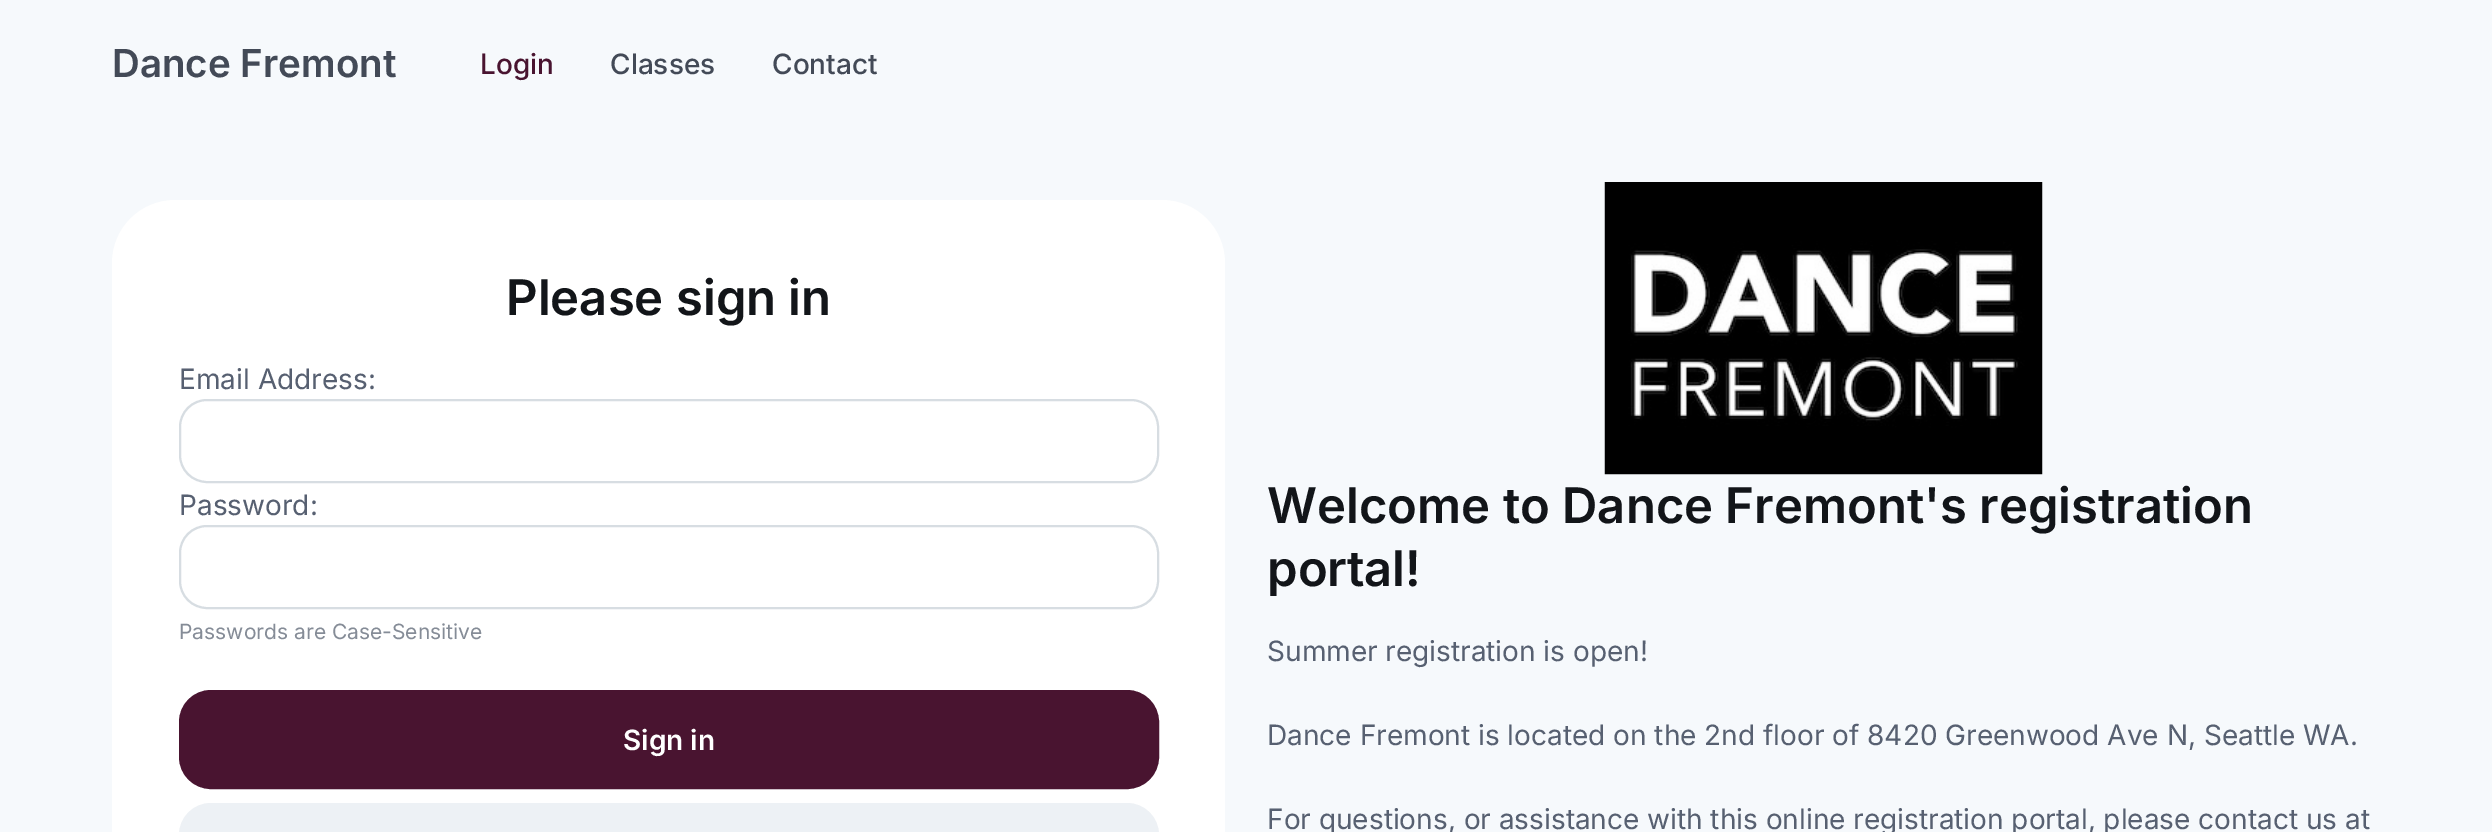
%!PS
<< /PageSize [2492 832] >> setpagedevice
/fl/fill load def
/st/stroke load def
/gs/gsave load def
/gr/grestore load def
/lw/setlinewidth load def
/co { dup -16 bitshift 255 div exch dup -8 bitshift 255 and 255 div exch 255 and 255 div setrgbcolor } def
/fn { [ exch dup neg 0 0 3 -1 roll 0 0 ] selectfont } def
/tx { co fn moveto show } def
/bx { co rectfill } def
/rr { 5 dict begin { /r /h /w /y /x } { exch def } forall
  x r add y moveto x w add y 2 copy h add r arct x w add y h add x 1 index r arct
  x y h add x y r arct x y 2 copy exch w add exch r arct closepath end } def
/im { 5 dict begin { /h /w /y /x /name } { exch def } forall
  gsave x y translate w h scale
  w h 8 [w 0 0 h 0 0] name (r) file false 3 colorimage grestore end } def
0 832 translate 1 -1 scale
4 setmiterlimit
0 0 2492 832 16#F6F9FC bx
16#FFFFFF co
112 200 1113 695 63 rr fl
16#D7DDE2 co
2 lw
180 400 978 82 27 rr st
180 526 978 82 27 rr st
16#491430 co
180 691 978 97 31 rr gs fl gr
st
16#EDF1F5 co
180 804 978 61 31 rr gs fl gr
st
(media/1.raw) 1604 182 439 293 im
(Dance Fremont) 112 77 /Inter-SemiBold 38.5 16#434A57 tx
(Login) 480 74 /Inter-Medium 28 16#491430 tx
(Classes) 610 74 /Inter-Medium 28 16#434A57 tx
(Contact) 772 74 /Inter-Medium 28 16#434A57 tx
(Please sign in) 506 315 /Inter-SemiBold 49 16#121519 tx
(Email Address:) 179 389 /Inter-Regular 28 16#576071 tx
(Password:) 179 515 /Inter-Regular 28 16#576071 tx
(Passwords are Case-Sensitive) 179 639 /Inter-Regular 21 16#858C97 tx
(Sign in) 623 750 /Inter-SemiBold 28 16#FFFFFF tx
(Welcome to Dance Fremont's registration) 1267 523 /Inter-SemiBold 49 16#121519 tx
(portal!) 1267 586 /Inter-SemiBold 49 16#121519 tx
(Summer registration is open!) 1267 661 /Inter-Regular 28 16#576071 tx
(Dance Fremont is located on the 2nd floor of 8420 Greenwood Ave N, Seattle WA.) 1267 745 /Inter-Regular 28 16#576071 tx
(For questions, or assistance with this online registration portal, please contact us at) 1267 829 /Inter-Regular 28 16#576071 tx
showpage
